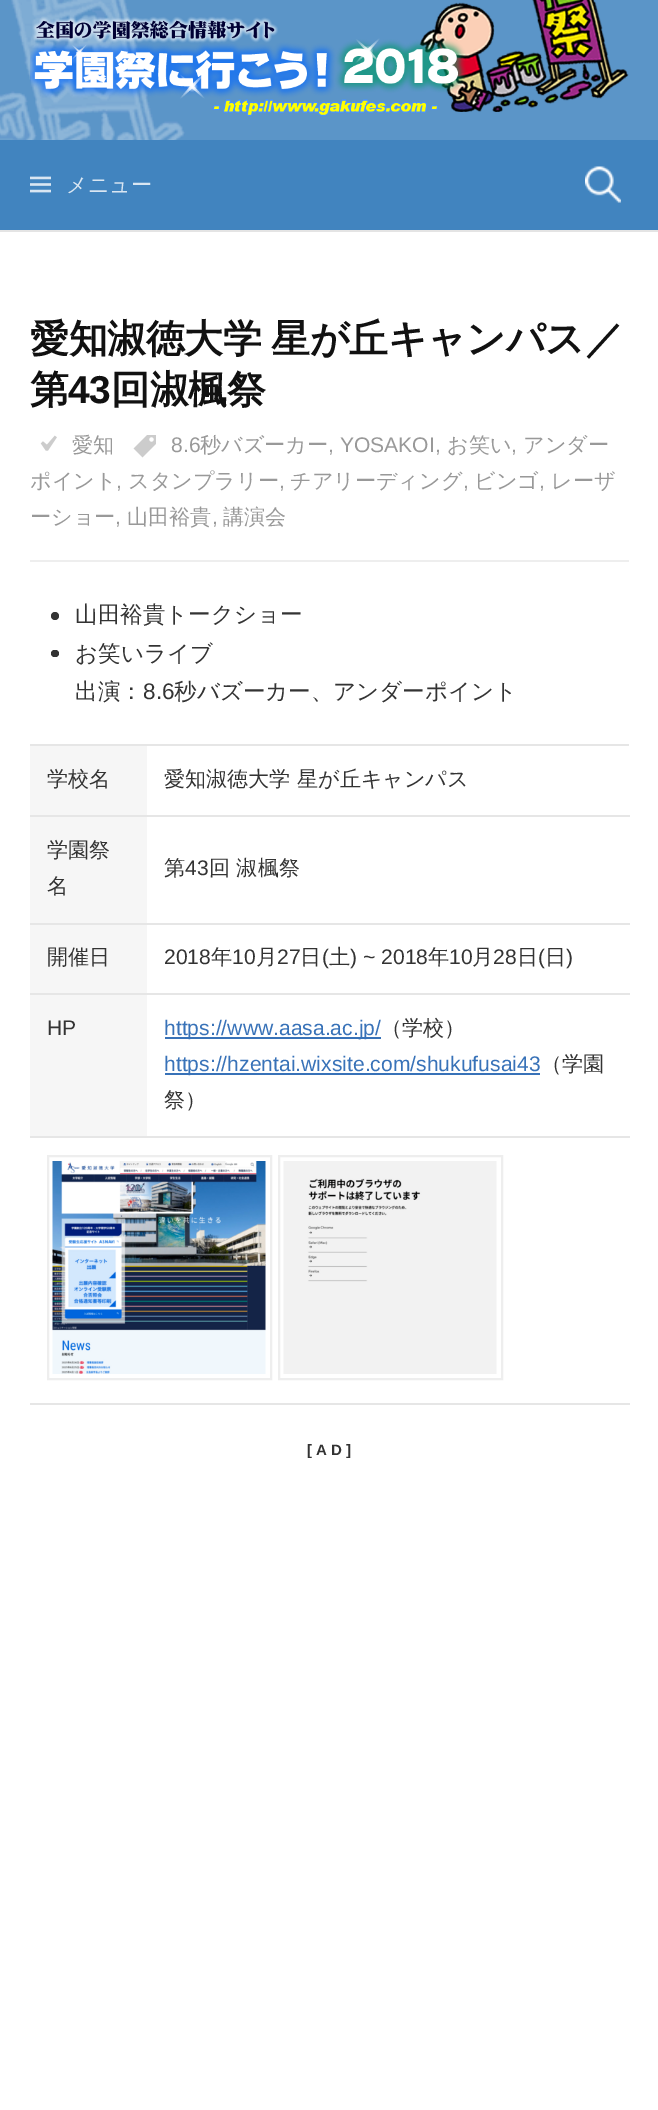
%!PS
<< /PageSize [658 2110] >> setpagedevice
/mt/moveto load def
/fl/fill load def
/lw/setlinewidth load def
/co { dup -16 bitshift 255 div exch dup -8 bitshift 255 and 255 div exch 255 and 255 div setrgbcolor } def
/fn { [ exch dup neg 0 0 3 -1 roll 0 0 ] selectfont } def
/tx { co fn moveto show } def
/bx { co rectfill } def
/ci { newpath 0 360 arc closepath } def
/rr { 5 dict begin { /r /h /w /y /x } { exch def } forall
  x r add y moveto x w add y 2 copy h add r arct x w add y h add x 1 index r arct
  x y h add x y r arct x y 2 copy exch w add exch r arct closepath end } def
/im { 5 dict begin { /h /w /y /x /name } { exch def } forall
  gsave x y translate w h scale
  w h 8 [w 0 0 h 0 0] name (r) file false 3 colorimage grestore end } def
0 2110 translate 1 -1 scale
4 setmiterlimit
0 0 658 2110 16#FFFFFF bx
185 0 473 140 16#5B95C8 bx
(media/1.raw) 0 0 185 140 im
0 230 658 2 16#E4E4E4 bx
(media/2.raw) 30 0 599 116 im
0 140 658 90 16#4184BF bx
(media/3.raw) 30 176 21 17 im
(media/4.raw) 585 166 36 37 im
(media/5.raw) 133 435 23 23 im
(media/6.raw) 40 435 17 16 im
30 560 599 2 16#EEEEEE bx
16#333333 co
55 616 4 ci fl
51 650 8 7 3.5 rr fl
30 744 599 2 16#E6E6E6 bx
30 746 117 69 16#F6F6F6 bx
30 815 600 2 16#E6E6E6 bx
30 817 117 106 16#F6F6F6 bx
30 923 600 2 16#E6E6E6 bx
30 925 117 68 16#F6F6F6 bx
30 993 600 2 16#E6E6E6 bx
30 995 117 141 16#F6F6F6 bx
30 1136 600 2 16#E6E6E6 bx
165 1037 216 2 16#3872B8 bx
165 1073 375 2 16#3872B8 bx
30 1403 600 2 16#E6E6E6 bx
16#EEEEEE co
2 lw
48 1156 223 223 rectstroke
(media/7.raw) 52 1161 214 213 im
279 1156 223 223 rectstroke
(media/8.raw) 283 1161 214 213 im
(メニュー) 66 192 /WenQuanYiZenHei-Medium 21.1 16#D9E6F2 tx
/WenQuanYiZenHei-Bold 38.9 fn
16#111111 co
30 352 mt -1 0 32 -.4 0 (愛知淑徳大学 星が丘キャンパス／) awidthshow
30 403 mt -.4 0 (第) ashow
/LiberationSans-Bold 38.9 fn
68 403 mt -.4 0 (43) ashow
/WenQuanYiZenHei-Bold 38.9 fn
111 403 mt -.4 0 (回淑楓祭) ashow
(8.6) 171 452 /LiberationSans-Regular 21.1 16#999999 tx
(秒バズーカー) 200 452 /WenQuanYiZenHei-Medium 21.1 16#999999 tx
(, YOSAKOI,) 328 452 /LiberationSans-Regular 21.1 16#999999 tx
(お笑い) 447 452 /WenQuanYiZenHei-Medium 21.1 16#999999 tx
(,) 511 452 /LiberationSans-Regular 21.1 16#999999 tx
(アンダー) 523 452 /WenQuanYiZenHei-Medium 21.1 16#999999 tx
(ポイント) 30 488 /WenQuanYiZenHei-Medium 21.1 16#999999 tx
(,) 116 488 /LiberationSans-Regular 21.1 16#999999 tx
(スタンプラリー) 128 488 /WenQuanYiZenHei-Medium 21.1 16#999999 tx
(,) 279 488 /LiberationSans-Regular 21.1 16#999999 tx
(チアリーディング) 290 488 /WenQuanYiZenHei-Medium 21.1 16#999999 tx
(,) 463 488 /LiberationSans-Regular 21.1 16#999999 tx
(ビンゴ) 474 488 /WenQuanYiZenHei-Medium 21.1 16#999999 tx
(,) 539 488 /LiberationSans-Regular 21.1 16#999999 tx
(レーザ) 551 488 /WenQuanYiZenHei-Medium 21.1 16#999999 tx
(ーショー) 30 524 /WenQuanYiZenHei-Medium 21.1 16#999999 tx
(,) 115 524 /LiberationSans-Regular 21.1 16#999999 tx
(山田裕貴) 127 524 /WenQuanYiZenHei-Medium 21.1 16#999999 tx
(,) 212 524 /LiberationSans-Regular 21.1 16#999999 tx
(講演会) 223 524 /WenQuanYiZenHei-Medium 21.1 16#999999 tx
(愛知) 72 452 /WenQuanYiZenHei-Medium 21.1 16#999999 tx
(山田裕貴トークショー) 75 622 /WenQuanYiZenHei-Medium 22.5 16#333333 tx
(お笑いライブ) 75 661 /WenQuanYiZenHei-Medium 22.5 16#333333 tx
(出演：) 75 699 /WenQuanYiZenHei-Medium 22.5 16#333333 tx
(8.6) 143 699 /LiberationSans-Regular 22.5 16#333333 tx
(秒バズーカー、アンダーポイント) 174 699 /WenQuanYiZenHei-Medium 22.5 16#333333 tx
(学校名) 47 786 /WenQuanYiZenHei-Medium 21.1 16#333333 tx
(愛知淑徳大学 星が丘キャンパス) 164 786 /WenQuanYiZenHei-Medium 21.1 16#333333 tx
(学園祭) 47 857 /WenQuanYiZenHei-Medium 21.1 16#333333 tx
(名) 47 893 /WenQuanYiZenHei-Medium 21.1 16#333333 tx
(第) 164 875 /WenQuanYiZenHei-Medium 21.1 16#333333 tx
(43) 185 875 /LiberationSans-Regular 21.1 16#333333 tx
(回 淑楓祭) 209 875 /WenQuanYiZenHei-Medium 21.1 16#333333 tx
(開催日) 47 964 /WenQuanYiZenHei-Medium 21.1 16#333333 tx
(2018) 164 964 /LiberationSans-Regular 21.1 16#333333 tx
(年) 211 964 /WenQuanYiZenHei-Medium 21.1 16#333333 tx
(10) 232 964 /LiberationSans-Regular 21.1 16#333333 tx
(月) 256 964 /WenQuanYiZenHei-Medium 21.1 16#333333 tx
(27) 277 964 /LiberationSans-Regular 21.1 16#333333 tx
(日) 300 964 /WenQuanYiZenHei-Medium 21.1 16#333333 tx
(\() 322 964 /LiberationSans-Regular 21.1 16#333333 tx
(土) 329 964 /WenQuanYiZenHei-Medium 21.1 16#333333 tx
(\) ~ 2018) 350 964 /LiberationSans-Regular 21.1 16#333333 tx
(年) 428 964 /WenQuanYiZenHei-Medium 21.1 16#333333 tx
(10) 449 964 /LiberationSans-Regular 21.1 16#333333 tx
(月) 472 964 /WenQuanYiZenHei-Medium 21.1 16#333333 tx
(28) 493 964 /LiberationSans-Regular 21.1 16#333333 tx
(日) 517 964 /WenQuanYiZenHei-Medium 21.1 16#333333 tx
(\() 538 964 /LiberationSans-Regular 21.1 16#333333 tx
(日) 545 964 /WenQuanYiZenHei-Medium 21.1 16#333333 tx
(\)) 566 964 /LiberationSans-Regular 21.1 16#333333 tx
(HP) 47 1035 /LiberationSans-Regular 21.1 16#333333 tx
(https://www.aasa.ac.jp/) 164 1035 /LiberationSans-Regular 21.1 16#3872B8 tx
(（学校）) 381 1035 /WenQuanYiZenHei-Medium 21.1 16#333333 tx
(https://hzentai.wixsite.com/shukufusai43) 164 1071 /LiberationSans-Regular 21.1 16#3872B8 tx
(（学園) 541 1071 /WenQuanYiZenHei-Medium 21.1 16#333333 tx
(祭）) 164 1107 /WenQuanYiZenHei-Medium 21.1 16#333333 tx
([ A D ]) 307 1455 /LiberationSans-Bold 15 16#333333 tx
showpage
